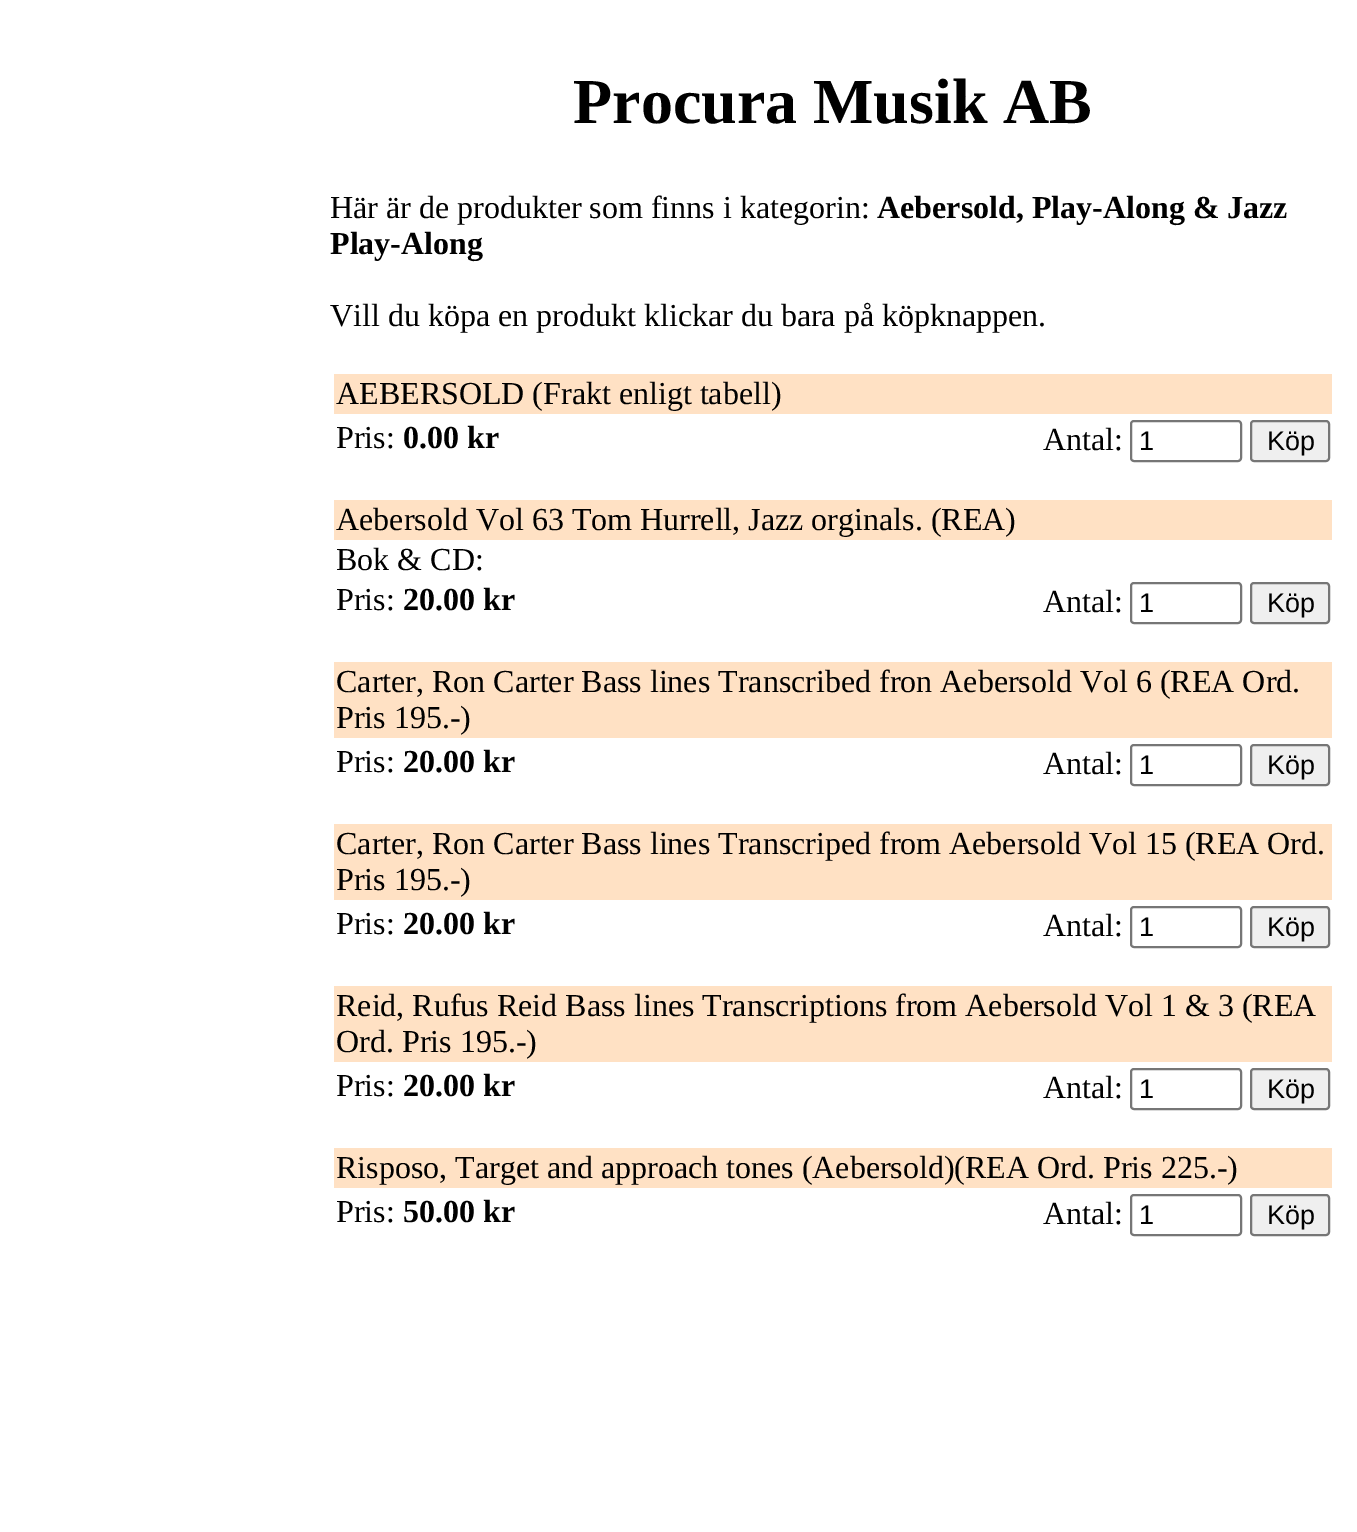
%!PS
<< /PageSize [1357 1532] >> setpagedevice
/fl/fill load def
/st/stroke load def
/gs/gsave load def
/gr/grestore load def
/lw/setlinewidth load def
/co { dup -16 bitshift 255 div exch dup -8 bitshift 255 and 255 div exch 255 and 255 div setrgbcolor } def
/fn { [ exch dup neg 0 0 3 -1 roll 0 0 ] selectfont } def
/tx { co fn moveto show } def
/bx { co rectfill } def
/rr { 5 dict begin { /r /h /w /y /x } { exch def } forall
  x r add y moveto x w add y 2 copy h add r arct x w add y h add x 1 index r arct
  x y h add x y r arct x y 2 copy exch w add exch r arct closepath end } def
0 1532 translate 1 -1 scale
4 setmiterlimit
0 0 1357 1532 16#FFFFFF bx
334 374 998 40 16#FFE1C4 bx
16#767676 co
2 lw
1131 421 110 40 3 rr st
16#EFEFEF co
1251 421 78 40 3 rr gs fl gr
16#767676 co
st
334 500 998 40 16#FFE1C4 bx
16#767676 co
1131 583 110 40 3 rr st
16#EFEFEF co
1251 583 78 40 3 rr gs fl gr
16#767676 co
st
334 662 998 76 16#FFE1C4 bx
16#767676 co
1131 745 110 40 3 rr st
16#EFEFEF co
1251 745 78 40 3 rr gs fl gr
16#767676 co
st
334 824 998 76 16#FFE1C4 bx
16#767676 co
1131 907 110 40 3 rr st
16#EFEFEF co
1251 907 78 40 3 rr gs fl gr
16#767676 co
st
334 986 998 76 16#FFE1C4 bx
16#767676 co
1131 1069 110 40 3 rr st
16#EFEFEF co
1251 1069 78 40 3 rr gs fl gr
16#767676 co
st
334 1148 998 40 16#FFE1C4 bx
16#767676 co
1131 1195 110 40 3 rr st
16#EFEFEF co
1251 1195 78 40 3 rr gs fl gr
16#767676 co
st
(Procura Musik AB) 573 123 /LiberationSerif-Bold 64 16#000000 tx
(Här är de produkter som finns i kategorin:) 330 218 /LiberationSerif-Regular 32 16#000000 tx
(Aebersold, Play-Along & Jazz) 877 218 /LiberationSerif-Bold 32 16#000000 tx
(Play-Along) 330 254 /LiberationSerif-Bold 32 16#000000 tx
(Vill du köpa en produkt klickar du bara på köpknappen.) 330 326 /LiberationSerif-Regular 32 16#000000 tx
(AEBERSOLD \(Frakt enligt tabell\)) 336 404 /LiberationSerif-Regular 32 16#000000 tx
(Pris:) 336 448 /LiberationSerif-Regular 32 16#000000 tx
(0.00 kr) 403 448 /LiberationSerif-Bold 32 16#000000 tx
(Antal:) 1043 450 /LiberationSerif-Regular 32 16#000000 tx
(1) 1139 450 /LiberationSans-Regular 27 16#000000 tx
(Köp) 1267 450 /LiberationSans-Regular 27 16#000000 tx
(Aebersold Vol 63 Tom Hurrell, Jazz orginals. \(REA\)) 336 530 /LiberationSerif-Regular 32 16#000000 tx
(Bok & CD:) 336 570 /LiberationSerif-Regular 32 16#000000 tx
(Pris:) 336 610 /LiberationSerif-Regular 32 16#000000 tx
(20.00 kr) 403 610 /LiberationSerif-Bold 32 16#000000 tx
(Antal:) 1043 612 /LiberationSerif-Regular 32 16#000000 tx
(1) 1139 612 /LiberationSans-Regular 27 16#000000 tx
(Köp) 1267 612 /LiberationSans-Regular 27 16#000000 tx
(Carter, Ron Carter Bass lines Transcribed fron Aebersold Vol 6 \(REA Ord.) 336 692 /LiberationSerif-Regular 32 16#000000 tx
(Pris 195.-\)) 336 728 /LiberationSerif-Regular 32 16#000000 tx
(Pris:) 336 772 /LiberationSerif-Regular 32 16#000000 tx
(20.00 kr) 403 772 /LiberationSerif-Bold 32 16#000000 tx
(Antal:) 1043 774 /LiberationSerif-Regular 32 16#000000 tx
(1) 1139 774 /LiberationSans-Regular 27 16#000000 tx
(Köp) 1267 774 /LiberationSans-Regular 27 16#000000 tx
(Carter, Ron Carter Bass lines Transcriped from Aebersold Vol 15 \(REA Ord.) 336 854 /LiberationSerif-Regular 32 16#000000 tx
(Pris 195.-\)) 336 890 /LiberationSerif-Regular 32 16#000000 tx
(Pris:) 336 934 /LiberationSerif-Regular 32 16#000000 tx
(20.00 kr) 403 934 /LiberationSerif-Bold 32 16#000000 tx
(Antal:) 1043 936 /LiberationSerif-Regular 32 16#000000 tx
(1) 1139 936 /LiberationSans-Regular 27 16#000000 tx
(Köp) 1267 936 /LiberationSans-Regular 27 16#000000 tx
(Reid, Rufus Reid Bass lines Transcriptions from Aebersold Vol 1 & 3 \(REA) 336 1016 /LiberationSerif-Regular 32 16#000000 tx
(Ord. Pris 195.-\)) 336 1052 /LiberationSerif-Regular 32 16#000000 tx
(Pris:) 336 1096 /LiberationSerif-Regular 32 16#000000 tx
(20.00 kr) 403 1096 /LiberationSerif-Bold 32 16#000000 tx
(Antal:) 1043 1098 /LiberationSerif-Regular 32 16#000000 tx
(1) 1139 1098 /LiberationSans-Regular 27 16#000000 tx
(Köp) 1267 1098 /LiberationSans-Regular 27 16#000000 tx
(Risposo, Target and approach tones \(Aebersold\)\(REA Ord. Pris 225.-\)) 336 1178 /LiberationSerif-Regular 32 16#000000 tx
(Pris:) 336 1222 /LiberationSerif-Regular 32 16#000000 tx
(50.00 kr) 403 1222 /LiberationSerif-Bold 32 16#000000 tx
(Antal:) 1043 1224 /LiberationSerif-Regular 32 16#000000 tx
(1) 1139 1224 /LiberationSans-Regular 27 16#000000 tx
(Köp) 1267 1224 /LiberationSans-Regular 27 16#000000 tx
showpage
